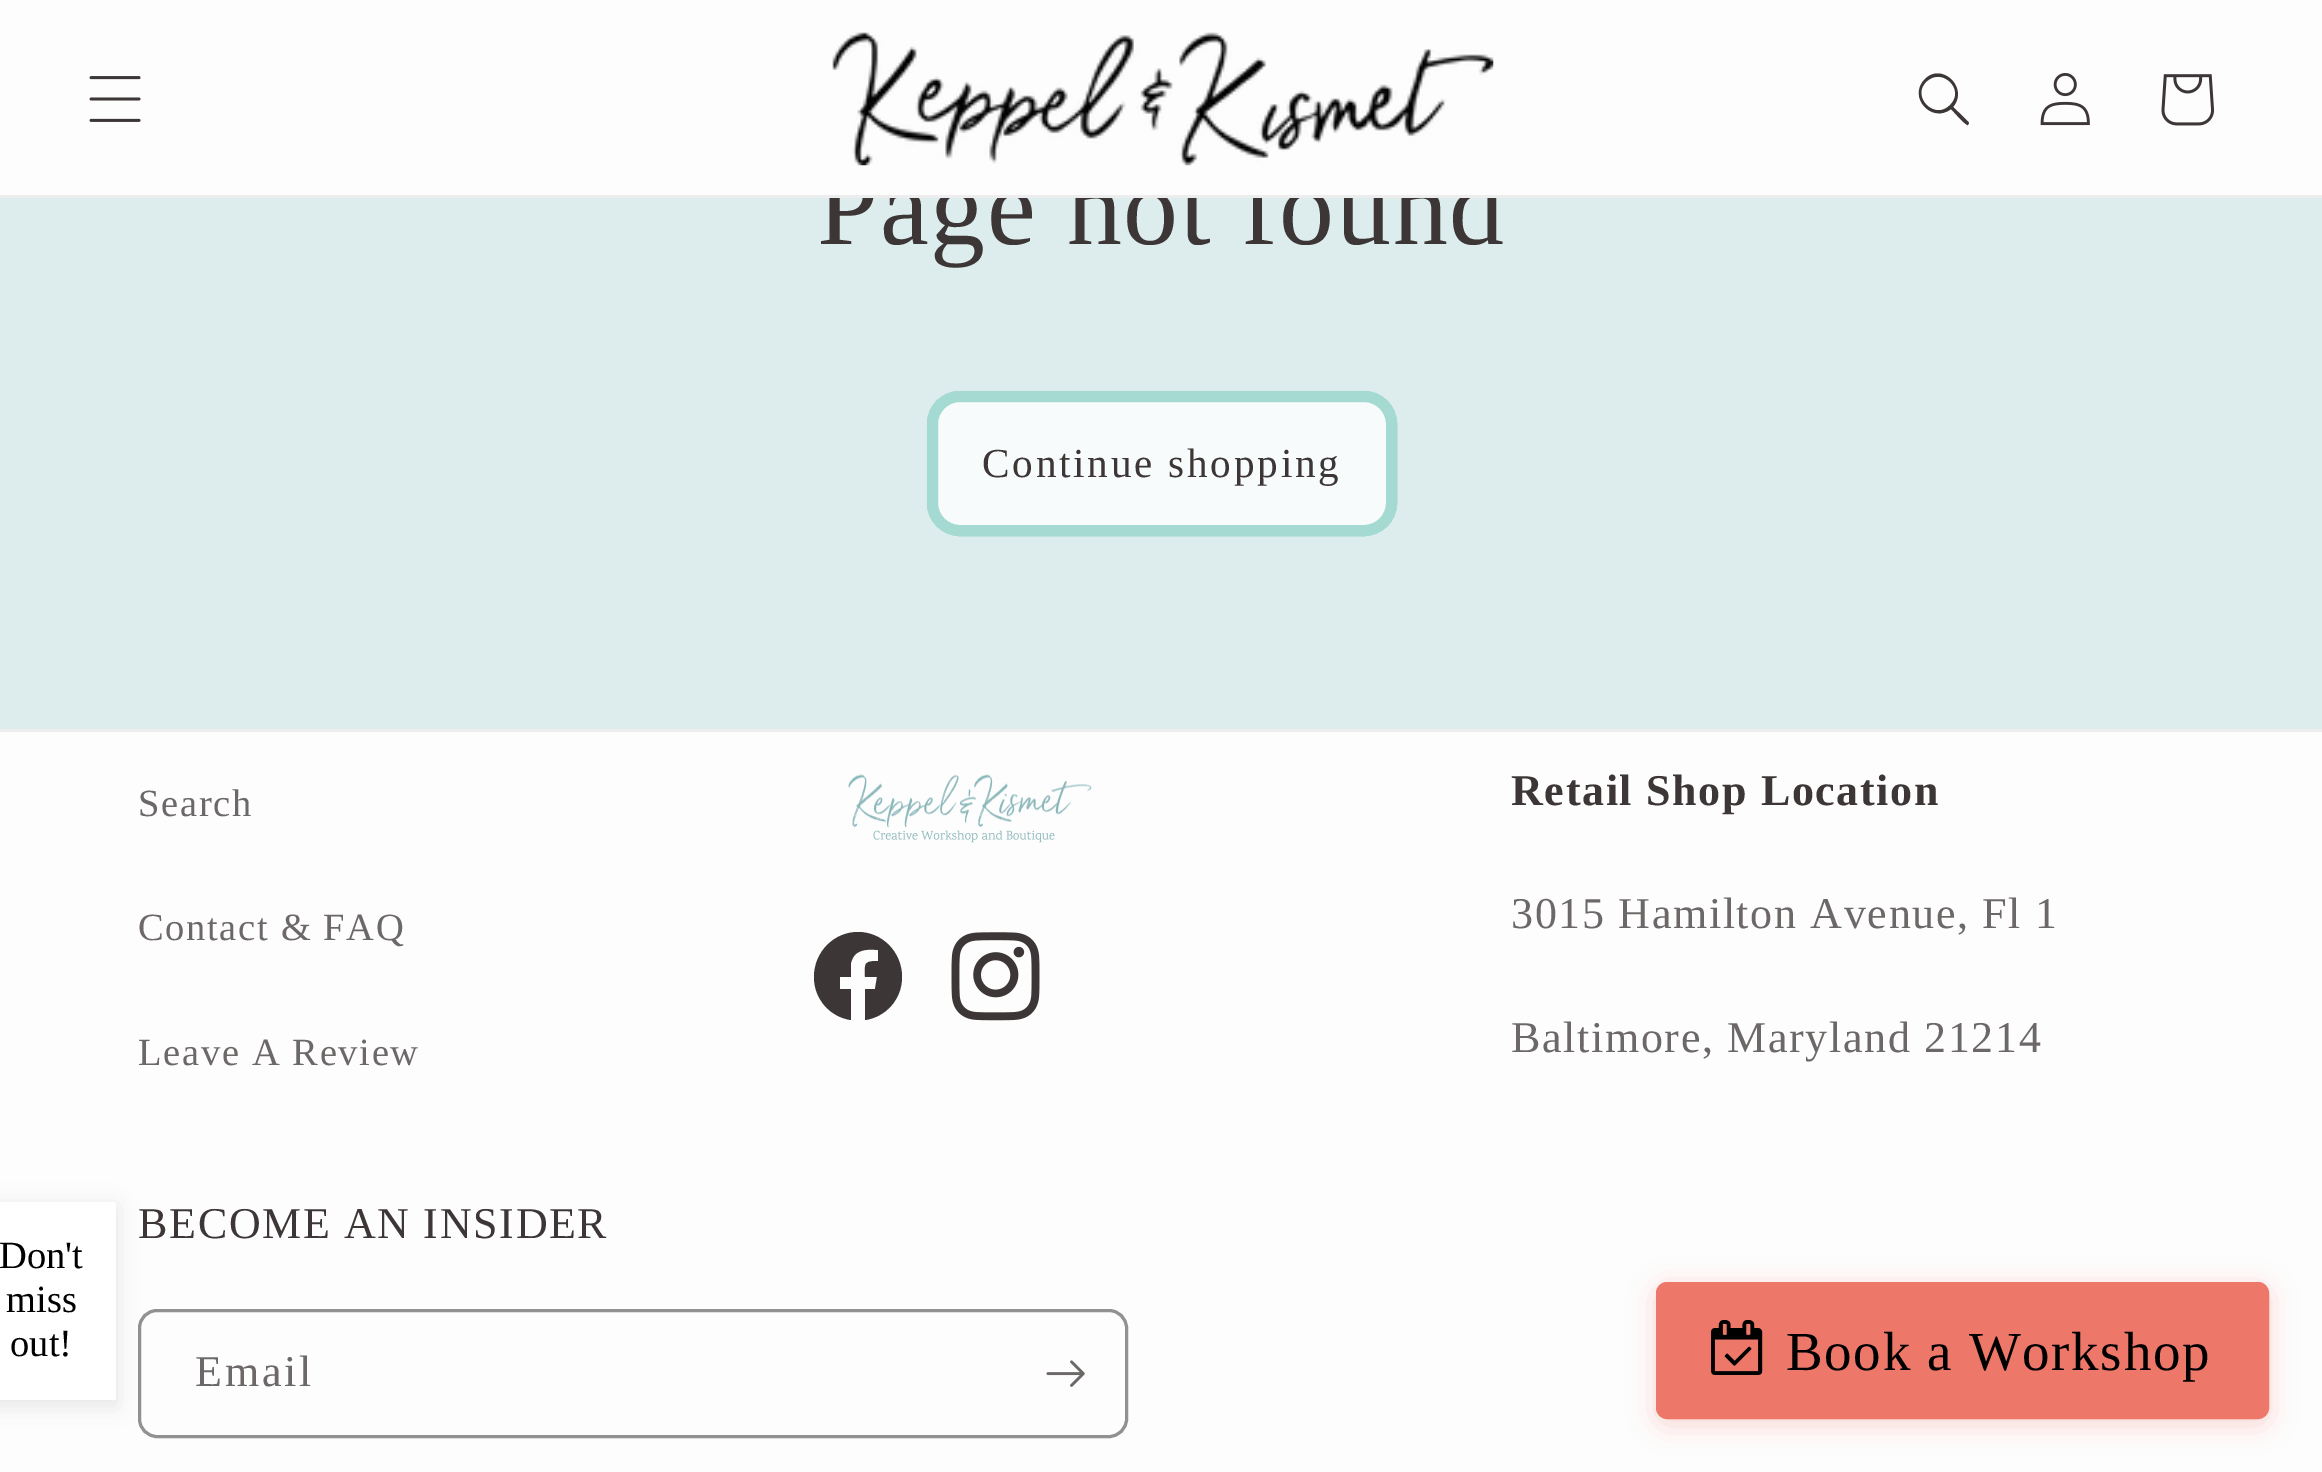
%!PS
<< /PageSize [2322 1472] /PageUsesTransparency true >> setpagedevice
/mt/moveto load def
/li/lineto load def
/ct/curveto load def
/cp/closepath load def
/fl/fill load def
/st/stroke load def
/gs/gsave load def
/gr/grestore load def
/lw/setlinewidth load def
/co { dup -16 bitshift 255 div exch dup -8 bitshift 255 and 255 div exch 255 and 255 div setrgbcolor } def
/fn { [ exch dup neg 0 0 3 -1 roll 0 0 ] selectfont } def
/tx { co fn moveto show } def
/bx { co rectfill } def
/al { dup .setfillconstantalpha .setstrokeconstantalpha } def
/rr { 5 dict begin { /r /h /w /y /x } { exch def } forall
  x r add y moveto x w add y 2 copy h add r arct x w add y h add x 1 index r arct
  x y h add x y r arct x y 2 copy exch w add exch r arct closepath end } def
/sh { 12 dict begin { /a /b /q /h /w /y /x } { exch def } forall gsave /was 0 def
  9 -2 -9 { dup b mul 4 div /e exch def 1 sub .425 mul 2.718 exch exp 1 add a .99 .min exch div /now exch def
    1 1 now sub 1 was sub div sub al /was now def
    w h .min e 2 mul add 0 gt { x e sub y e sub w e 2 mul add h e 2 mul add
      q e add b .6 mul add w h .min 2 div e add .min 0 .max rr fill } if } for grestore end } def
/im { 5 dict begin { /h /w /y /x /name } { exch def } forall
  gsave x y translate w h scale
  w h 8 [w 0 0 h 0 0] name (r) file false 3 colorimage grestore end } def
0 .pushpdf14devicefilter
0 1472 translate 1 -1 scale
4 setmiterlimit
0 0 2322 1472 16#DDEDED bx
16#F8FBFB co
927 391 470 145 33 rr fl
16#39B09D co
11 lw
932.5 396.5 459 134 27.5 rr st
0.55 al
16#FDFDFD co
12 lw
933 397 458 133 27 rr st
1 al
0 732 2322 740 16#FDFDFD bx
16#939090 co
3 lw
139.5 1310.5 987 126 17.5 rr st
16#000000 co
-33 1207 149 198 0 11 .1 sh
0 1202 116 198 16#FFFFFF bx
0 729 2322 3 16#EEEDED bx
(media/5.raw) 848 774 244 69 im
16#3D3636 co
902 977 mt 902 952 882 932 858 932 ct 834 932 814 952 814 977 ct 814 999 830 1017 851 1020 ct 851 989 li 840 989 li 840 977 li 851 977 li 851 963 li 854 949 867 949 878 950 ct 878 961 li 863 961 865 964 865 977 ct 877 977 li 875 989 li 865 989 li 865 1020 li 886 1017 902 999 902 977 ct cp fl
(media/6.raw) 951 932 89 89 im
(media/7.raw) 1046 1360 39 27 im
16#ED7769 co
1656 1287 613 138 11 14 .3 sh
1657.5 1283.5 610 134 9.5 rr gs fl gr
st
(media/8.raw) 1711 1320 52 55 im
/LiberationSerif-Regular 110 fn
16#3D3636 co
817 244 mt 1.65 0 (Page not found) ashow
0 0 2322 195 16#FDFDFD bx
(media/4.raw) 2161 74 54 52 im
16#3D3636 co
1950 105 mt 1935 121 1911 97 1926 82 ct 1942 66 1966 90 1950 105 ct cp 1951 109 mt 1932 124 1907 97 1925 79 ct 1942 62 1969 88 1953 107 ct 1955 109 1969 122 1969 123 ct 1968 125 li 1966 126 1953 111 1951 109 ct cp eofill
(media/1.raw) 89 76 52 46 im
(media/3.raw) 2040 72 50 54 im
(media/2.raw) 832 32 662 134 im
0 195 2322 3 16#EEEDED bx
/LiberationSerif-Regular 41.25 fn
16#3D3636 co
982 477 mt 2.75 0 (Continue shopping) ashow
(Don't) -1 1268 /LiberationSerif-Regular 38.5 16#000000 tx
(miss) 6 1312 /LiberationSerif-Regular 38.5 16#000000 tx
(out!) 10 1356 /LiberationSerif-Regular 38.5 16#000000 tx
16#6D6868 co
138 816 mt 1.65 0 (Search) ashow
138 940 mt 1.65 0 (Contact & FAQ) ashow
138 1065 mt 1.65 0 (Leave A Review) ashow
/LiberationSerif-Bold 44 fn
16#3D3636 co
1511 805 mt 1.65 0 (Retail Shop Location) ashow
/LiberationSerif-Regular 44 fn
16#6D6868 co
1511 928 mt 1.65 0 (3015 Hamilton Avenue, Fl 1) ashow
1511 1052 mt 1.65 0 (Baltimore, Maryland 21214) ashow
16#3D3636 co
138 1238 mt 1.65 0 (BECOME AN INSIDER) ashow
16#6D6868 co
195 1386 mt 2.75 0 (Email) ashow
/LiberationSerif-Regular 55 fn
16#000000 co
1786 1370 mt 1.65 0 (Book a Workshop) ashow
.poppdf14devicefilter showpage
